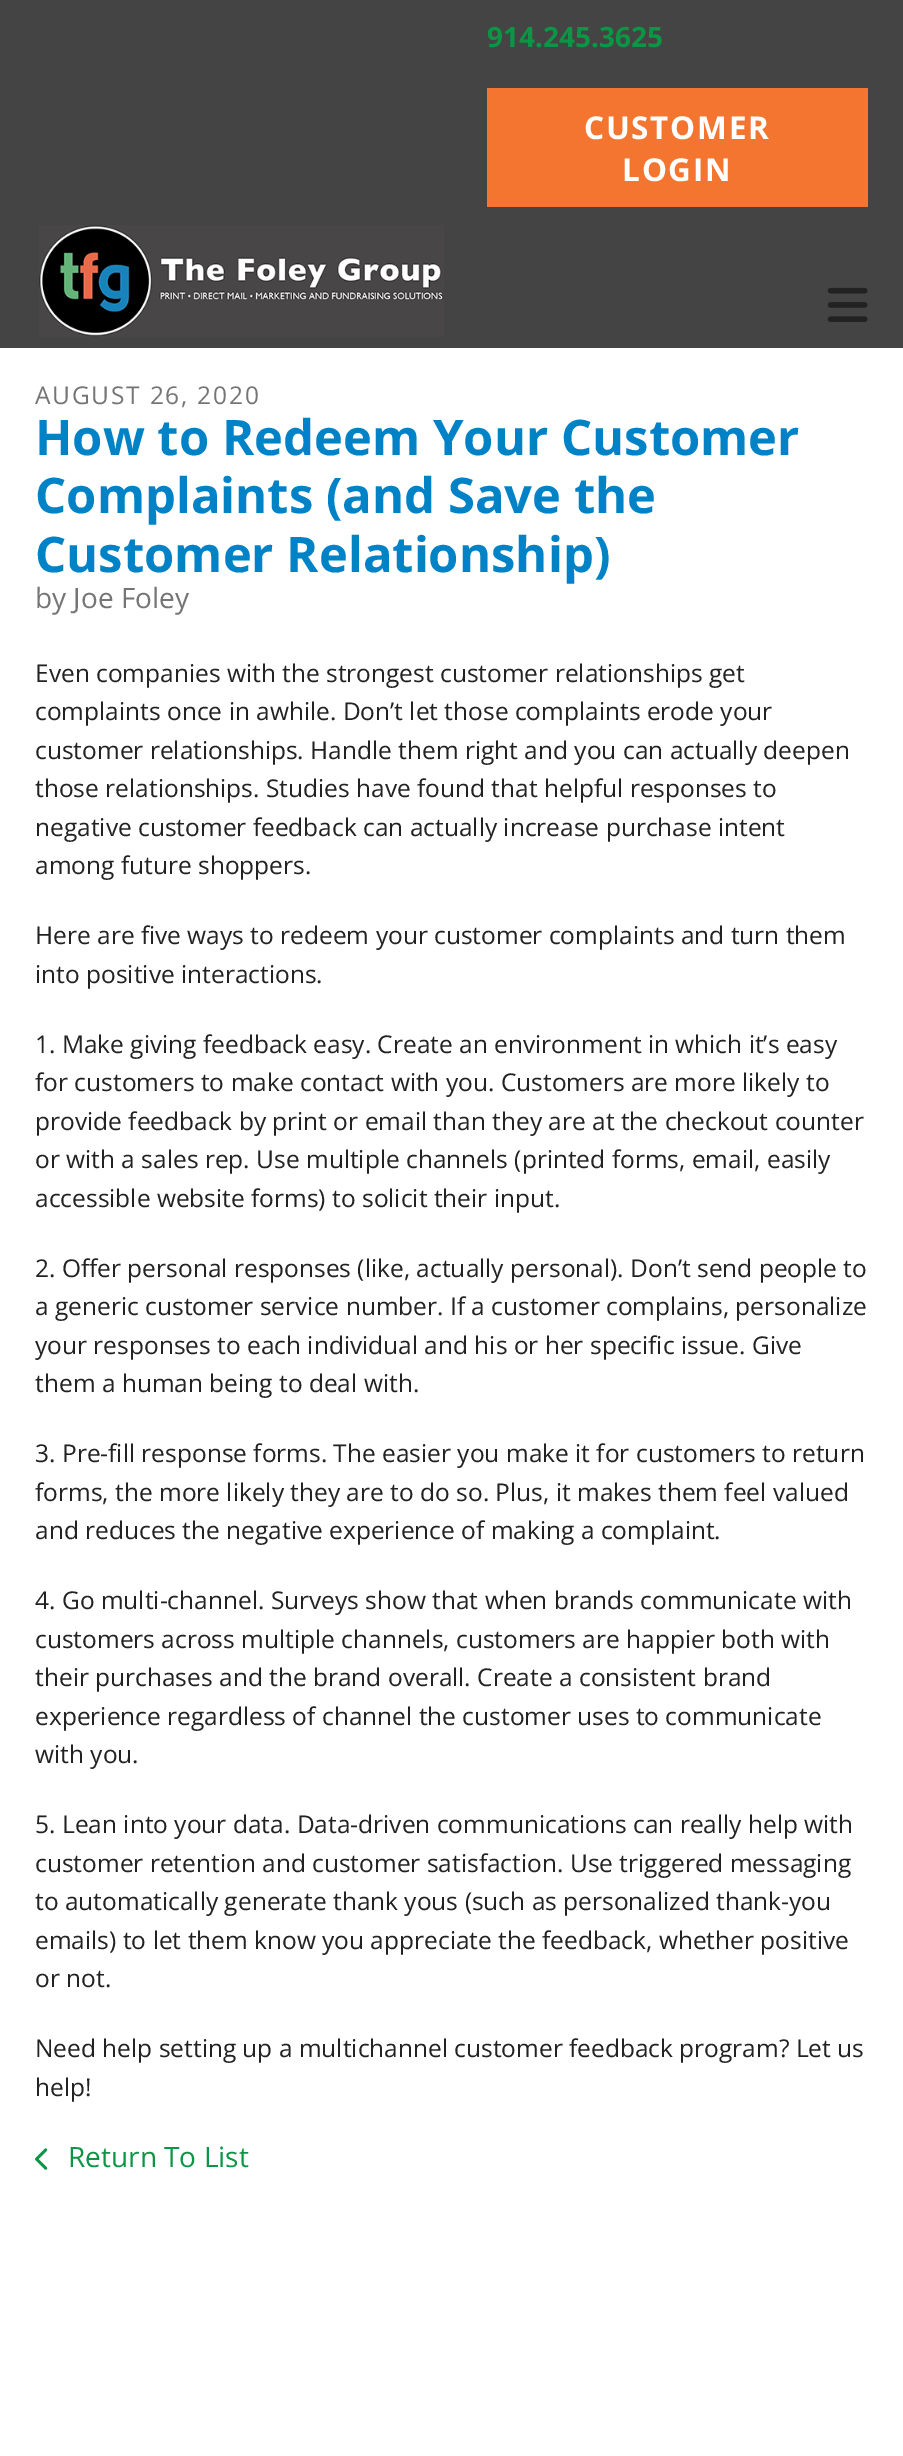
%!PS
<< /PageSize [903 2456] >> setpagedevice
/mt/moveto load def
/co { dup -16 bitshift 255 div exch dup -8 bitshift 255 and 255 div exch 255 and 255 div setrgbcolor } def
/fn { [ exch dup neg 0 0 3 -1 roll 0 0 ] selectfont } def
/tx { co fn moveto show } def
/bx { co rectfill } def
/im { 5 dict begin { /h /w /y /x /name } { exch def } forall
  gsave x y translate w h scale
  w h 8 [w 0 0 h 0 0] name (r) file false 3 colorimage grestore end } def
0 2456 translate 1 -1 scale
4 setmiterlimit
0 0 903 2456 16#FFFFFF bx
0 0 903 348 16#444444 bx
487 88 381 119 16#F3752F bx
(media/1.raw) 827 287 41 35 im
(media/2.raw) 39 225 405 112 im
(media/3.raw) 35 2148 13 22 im
(914.245.3625) 487 47 /OpenSans-Bold 28 16#0B9545 tx
/OpenSans-Bold 31.5 fn
16#FFFFFF co
584 139 mt 1.75 0 (CUSTOMER) ashow
622 181 mt 1.75 0 (LOGIN) ashow
/OpenSans-Regular 24.5 fn
16#757575 co
35 404 mt 1.75 0 (AUGUST 26, 2020) ashow
(How to Redeem Your Customer) 35 455 /OpenSans-Bold 49 16#0082C7 tx
(Complaints \(and Save the) 35 513 /OpenSans-Bold 49 16#0082C7 tx
(Customer Relationship\)) 35 572 /OpenSans-Bold 49 16#0082C7 tx
(by Joe Foley) 35 608 /OpenSans-Regular 28 16#757575 tx
(Even companies with the strongest customer relationships get) 35 682 /OpenSans-Regular 24.5 16#222222 tx
(complaints once in awhile. Don’t let those complaints erode your) 35 720 /OpenSans-Regular 24.5 16#222222 tx
(customer relationships. Handle them right and you can actually deepen) 35 759 /OpenSans-Regular 24.5 16#222222 tx
(those relationships. Studies have found that helpful responses to) 35 797 /OpenSans-Regular 24.5 16#222222 tx
(negative customer feedback can actually increase purchase intent) 35 836 /OpenSans-Regular 24.5 16#222222 tx
(among future shoppers.) 35 874 /OpenSans-Regular 24.5 16#222222 tx
(Here are five ways to redeem your customer complaints and turn them) 35 944 /OpenSans-Regular 24.5 16#222222 tx
(into positive interactions.) 35 983 /OpenSans-Regular 24.5 16#222222 tx
(1. Make giving feedback easy. Create an environment in which it’s easy) 35 1053 /OpenSans-Regular 24.5 16#222222 tx
(for customers to make contact with you. Customers are more likely to) 35 1091 /OpenSans-Regular 24.5 16#222222 tx
(provide feedback by print or email than they are at the checkout counter) 35 1130 /OpenSans-Regular 24.5 16#222222 tx
(or with a sales rep. Use multiple channels \(printed forms, email, easily) 35 1168 /OpenSans-Regular 24.5 16#222222 tx
(accessible website forms\) to solicit their input.) 35 1207 /OpenSans-Regular 24.5 16#222222 tx
(2. Offer personal responses \(like, actually personal\). Don’t send people to) 35 1277 /OpenSans-Regular 24.5 16#222222 tx
(a generic customer service number. If a customer complains, personalize) 35 1315 /OpenSans-Regular 24.5 16#222222 tx
(your responses to each individual and his or her specific issue. Give) 35 1354 /OpenSans-Regular 24.5 16#222222 tx
(them a human being to deal with.) 35 1392 /OpenSans-Regular 24.5 16#222222 tx
(3. Pre-fill response forms. The easier you make it for customers to return) 35 1462 /OpenSans-Regular 24.5 16#222222 tx
(forms, the more likely they are to do so. Plus, it makes them feel valued) 35 1501 /OpenSans-Regular 24.5 16#222222 tx
(and reduces the negative experience of making a complaint.) 35 1539 /OpenSans-Regular 24.5 16#222222 tx
(4. Go multi-channel. Surveys show that when brands communicate with) 35 1609 /OpenSans-Regular 24.5 16#222222 tx
(customers across multiple channels, customers are happier both with) 35 1648 /OpenSans-Regular 24.5 16#222222 tx
(their purchases and the brand overall. Create a consistent brand) 35 1686 /OpenSans-Regular 24.5 16#222222 tx
(experience regardless of channel the customer uses to communicate) 35 1725 /OpenSans-Regular 24.5 16#222222 tx
(with you.) 35 1763 /OpenSans-Regular 24.5 16#222222 tx
(5. Lean into your data. Data-driven communications can really help with) 35 1833 /OpenSans-Regular 24.5 16#222222 tx
(customer retention and customer satisfaction. Use triggered messaging) 35 1872 /OpenSans-Regular 24.5 16#222222 tx
(to automatically generate thank yous \(such as personalized thank-you) 35 1910 /OpenSans-Regular 24.5 16#222222 tx
(emails\) to let them know you appreciate the feedback, whether positive) 35 1949 /OpenSans-Regular 24.5 16#222222 tx
(or not.) 35 1987 /OpenSans-Regular 24.5 16#222222 tx
(Need help setting up a multichannel customer feedback program? Let us) 35 2057 /OpenSans-Regular 24.5 16#222222 tx
(help!) 35 2096 /OpenSans-Regular 24.5 16#222222 tx
(Return To List) 68 2167 /OpenSans-Regular 28 16#0B9545 tx
showpage
